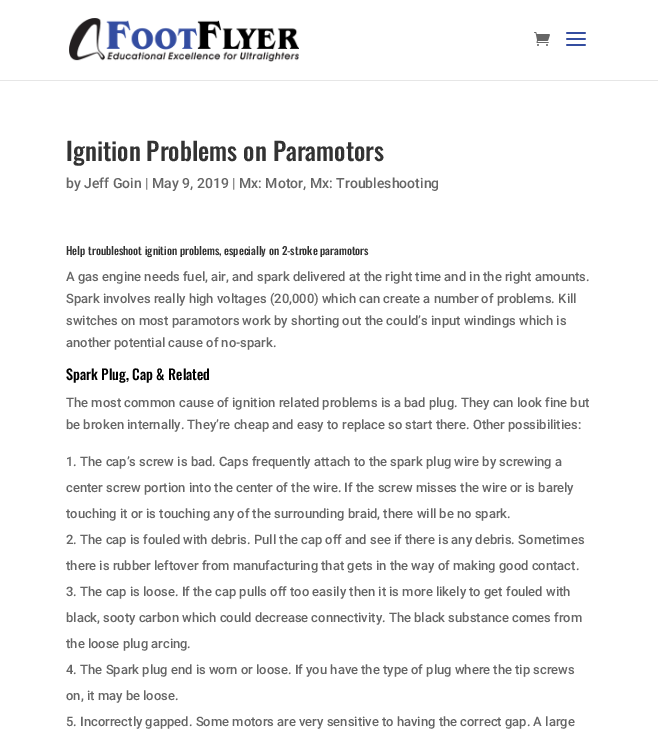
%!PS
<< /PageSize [658 740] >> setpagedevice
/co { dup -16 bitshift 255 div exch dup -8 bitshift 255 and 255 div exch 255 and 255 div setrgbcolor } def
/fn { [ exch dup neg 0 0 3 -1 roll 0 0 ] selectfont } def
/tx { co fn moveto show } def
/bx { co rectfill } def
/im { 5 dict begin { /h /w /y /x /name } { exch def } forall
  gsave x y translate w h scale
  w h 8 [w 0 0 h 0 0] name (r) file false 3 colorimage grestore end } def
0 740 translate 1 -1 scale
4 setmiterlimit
0 0 658 740 16#FFFFFF bx
0 80 658 1 16#E6E6E6 bx
(media/1.raw) 69 18 230 44 im
(media/2.raw) 534 32 16 14 im
(media/3.raw) 566 32 20 14 im
(Ignition Problems on Paramotors) 66 161 /Oswald-Medium 25 16#333333 tx
(by Jeff Goin | May 9, 2019 | Mx: Motor, Mx: Troubleshooting) 66 188 /Roboto-Medium 14 16#666666 tx
(Help troubleshoot ignition problems, especially on 2-stroke paramotors) 66 255 /Oswald-Medium 11 16#333333 tx
(A gas engine needs fuel, air, and spark delivered at the right time and in the right amounts.) 66 281 /Roboto-Medium 13 16#666666 tx
(Spark involves really high voltages \(20,000\) which can create a number of problems. Kill) 66 303 /Roboto-Medium 13 16#666666 tx
(switches on most paramotors work by shorting out the could’s input windings which is) 66 325 /Roboto-Medium 13 16#666666 tx
(another potential cause of no-spark.) 66 347 /Roboto-Medium 13 16#666666 tx
(Spark Plug, Cap & Related) 66 380 /Oswald-Medium 14.25 16#000000 tx
(The most common cause of ignition related problems is a bad plug. They can look fine but) 66 407 /Roboto-Medium 13 16#666666 tx
(be broken internally. They’re cheap and easy to replace so start there. Other possibilities:) 66 429 /Roboto-Medium 13 16#666666 tx
(1. The cap’s screw is bad. Caps frequently attach to the spark plug wire by screwing a) 66 466 /Roboto-Medium 13 16#666666 tx
(center screw portion into the center of the wire. If the screw misses the wire or is barely) 66 492 /Roboto-Medium 13 16#666666 tx
(touching it or is touching any of the surrounding braid, there will be no spark.) 66 518 /Roboto-Medium 13 16#666666 tx
(2. The cap is fouled with debris. Pull the cap off and see if there is any debris. Sometimes) 66 544 /Roboto-Medium 13 16#666666 tx
(there is rubber leftover from manufacturing that gets in the way of making good contact.) 66 570 /Roboto-Medium 13 16#666666 tx
(3. The cap is loose. If the cap pulls off too easily then it is more likely to get fouled with) 66 596 /Roboto-Medium 13 16#666666 tx
(black, sooty carbon which could decrease connectivity. The black substance comes from) 66 622 /Roboto-Medium 13 16#666666 tx
(the loose plug arcing.) 66 648 /Roboto-Medium 13 16#666666 tx
(4. The Spark plug end is worn or loose. If you have the type of plug where the tip screws) 66 674 /Roboto-Medium 13 16#666666 tx
(on, it may be loose.) 66 700 /Roboto-Medium 13 16#666666 tx
(5. Incorrectly gapped. Some motors are very sensitive to having the correct gap. A large) 66 726 /Roboto-Medium 13 16#666666 tx
showpage
